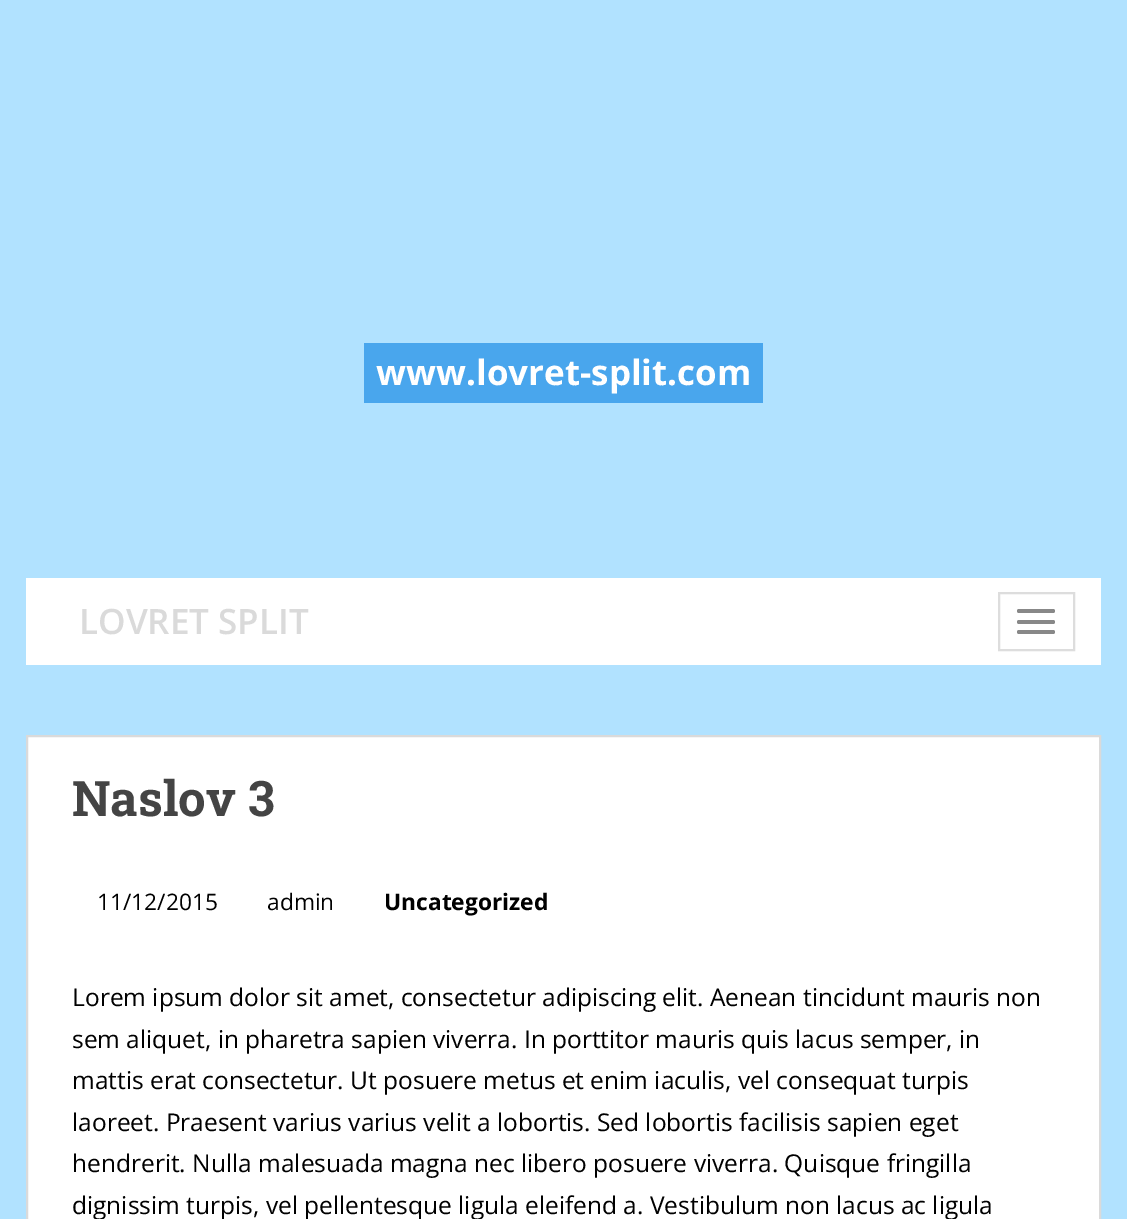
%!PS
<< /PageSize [1127 1219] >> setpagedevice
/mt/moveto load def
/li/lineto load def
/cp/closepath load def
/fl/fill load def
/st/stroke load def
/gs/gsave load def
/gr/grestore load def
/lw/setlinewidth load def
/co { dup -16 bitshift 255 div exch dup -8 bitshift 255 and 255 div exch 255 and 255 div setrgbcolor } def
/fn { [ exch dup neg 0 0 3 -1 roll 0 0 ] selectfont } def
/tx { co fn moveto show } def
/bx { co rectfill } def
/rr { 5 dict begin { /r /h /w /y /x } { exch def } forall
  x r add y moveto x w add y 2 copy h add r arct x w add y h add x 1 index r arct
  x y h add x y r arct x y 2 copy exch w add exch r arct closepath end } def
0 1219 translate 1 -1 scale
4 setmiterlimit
0 0 1127 1219 16#B1E2FF bx
364 343 399 60 16#49A6ED bx
26 578 1075 87 16#FFFFFF bx
16#DDDDDD co
2 lw
999 593 75 57 rectstroke
16#888888 co
1017 609 38 4 2 rr fl
1017 620 38 4 2 rr fl
1017 630 38 4 2 rr fl
16#FFFFFF co
27 736 mt 1100 736 li 1100 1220 li 27 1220 li cp gs fl gr
16#DADADA co
st
(www.lovret-split.com) 376 385 /OpenSans-Bold 35 16#FFFFFF tx
(LOVRET SPLIT) 79 634 /OpenSans-SemiBold 35 16#DADADA tx
(Naslov 3) 72 816 /RobotoSlab-Bold 49 16#444444 tx
(11/12/2015) 97 910 /OpenSans-Regular 22.75 16#000000 tx
(admin) 267 910 /OpenSans-Regular 22.75 16#000000 tx
(Uncategorized) 384 910 /OpenSans-Bold 22.75 16#000000 tx
(Lorem ipsum dolor sit amet, consectetur adipiscing elit. Aenean tincidunt mauris non) 72 1006 /OpenSans-Regular 24.5 16#000000 tx
(sem aliquet, in pharetra sapien viverra. In porttitor mauris quis lacus semper, in) 72 1048 /OpenSans-Regular 24.5 16#000000 tx
(mattis erat consectetur. Ut posuere metus et enim iaculis, vel consequat turpis) 72 1089 /OpenSans-Regular 24.5 16#000000 tx
(laoreet. Praesent varius varius velit a lobortis. Sed lobortis facilisis sapien eget) 72 1131 /OpenSans-Regular 24.5 16#000000 tx
(hendrerit. Nulla malesuada magna nec libero posuere viverra. Quisque fringilla) 72 1172 /OpenSans-Regular 24.5 16#000000 tx
(dignissim turpis, vel pellentesque ligula eleifend a. Vestibulum non lacus ac ligula) 72 1214 /OpenSans-Regular 24.5 16#000000 tx
showpage
